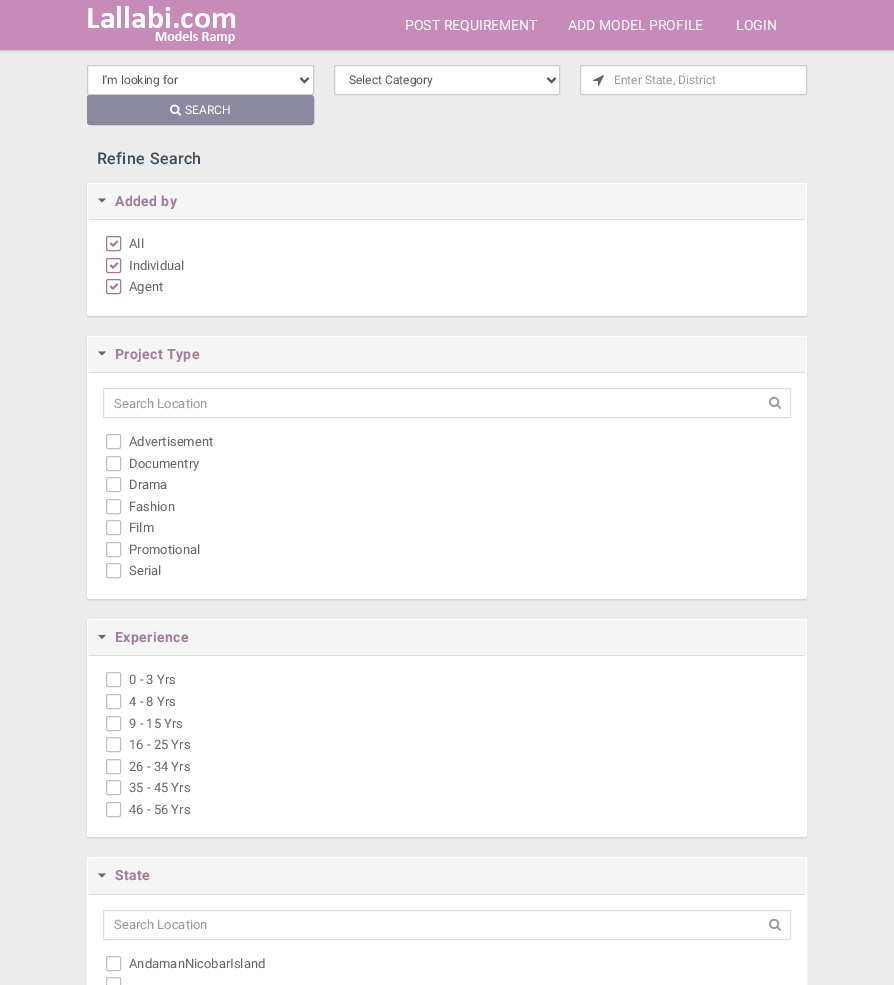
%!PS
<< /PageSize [894 985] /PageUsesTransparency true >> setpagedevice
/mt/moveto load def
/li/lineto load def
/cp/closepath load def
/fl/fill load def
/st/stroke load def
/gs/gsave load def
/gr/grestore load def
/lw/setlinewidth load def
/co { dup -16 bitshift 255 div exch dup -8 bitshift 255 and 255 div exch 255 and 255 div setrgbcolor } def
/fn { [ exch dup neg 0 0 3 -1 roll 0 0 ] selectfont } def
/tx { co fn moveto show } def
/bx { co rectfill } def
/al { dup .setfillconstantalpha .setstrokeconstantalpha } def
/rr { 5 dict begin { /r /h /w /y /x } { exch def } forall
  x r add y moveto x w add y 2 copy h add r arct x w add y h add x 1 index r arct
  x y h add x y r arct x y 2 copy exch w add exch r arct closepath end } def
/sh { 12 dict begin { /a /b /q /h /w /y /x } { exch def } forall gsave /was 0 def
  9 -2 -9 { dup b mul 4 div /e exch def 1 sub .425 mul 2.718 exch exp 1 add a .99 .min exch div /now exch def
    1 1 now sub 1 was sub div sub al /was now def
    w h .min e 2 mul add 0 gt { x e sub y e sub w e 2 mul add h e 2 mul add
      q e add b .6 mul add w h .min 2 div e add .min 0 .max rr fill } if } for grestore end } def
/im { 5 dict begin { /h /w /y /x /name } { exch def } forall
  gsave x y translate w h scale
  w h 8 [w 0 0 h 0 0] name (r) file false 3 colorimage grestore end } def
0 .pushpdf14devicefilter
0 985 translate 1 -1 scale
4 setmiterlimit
0 0 894 985 16#EDECEC bx
16#000000 co
0 1 894 50 0 1 .22 sh
0 0 894 50 16#C78BBA bx
(media/1.raw) 88 6 148 38 im
16#FFFFFF co
87.5 65.5 226 29 1.5 rr gs fl gr
16#CCCCCC co
st
16#555555 co
2 lw
300.5 78 mt 304.5 82 li 308.5 78 li st
16#FFFFFF co
334.5 65.5 225 29 1.5 rr gs fl gr
16#CCCCCC co
1 lw
st
16#555555 co
2 lw
547.5 78 mt 551.5 82 li 555.5 78 li st
16#FFFFFF co
580.5 65.5 226 29 1.5 rr gs fl gr
16#CCCCCC co
1 lw
st
(media/2.raw) 593 75 11 11 im
16#8B89A0 co
87.5 95.5 226 29 2.5 rr gs fl gr
st
(media/3.raw) 170 104 12 12 im
16#000000 co
87 184 720 133 2 .5 .18 sh
16#FFFFFF co
87.5 183.5 719 132 1.5 rr gs fl gr
st
16#F5F5F5 co
88 184 718 36 2 rr fl
89 219 716 1 16#DDDDDD bx
16#666666 co
98 198.5 mt 106 198.5 li 102 202.5 li cp fl
16#A27A99 co
106.5 236.5 14 14 1.5 rr st
(media/4.raw) 109 240 10 7 im
106.5 258.5 14 14 1.5 rr st
(media/4.raw) 109 262 10 7 im
106.5 279.5 14 14 1.5 rr st
(media/4.raw) 109 283 10 7 im
16#000000 co
87 337 720 263 2 .5 .18 sh
16#FFFFFF co
87.5 336.5 719 262 1.5 rr gs fl gr
st
16#F5F5F5 co
88 337 718 36 2 rr fl
89 372 716 1 16#DDDDDD bx
16#666666 co
98 351.5 mt 106 351.5 li 102 355.5 li cp fl
16#DDDDDD co
103.5 388.5 687 29 .5 rr st
(media/5.raw) 769 396 12 13 im
16#C1C1C1 co
106.5 434.5 14 14 1.5 rr st
106.5 456.5 14 14 1.5 rr st
106.5 477.5 14 14 1.5 rr st
106.5 499.5 14 14 1.5 rr st
106.5 520.5 14 14 1.5 rr st
106.5 542.5 14 14 1.5 rr st
106.5 563.5 14 14 1.5 rr st
16#000000 co
87 620 720 218 2 .5 .18 sh
16#FFFFFF co
87.5 619.5 719 217 1.5 rr gs fl gr
st
16#F5F5F5 co
88 620 718 36 2 rr fl
89 655 716 1 16#DDDDDD bx
16#666666 co
98 635 mt 106 635 li 102 639 li cp fl
16#C1C1C1 co
106.5 672.5 14 14 1.5 rr st
106.5 694.5 14 14 1.5 rr st
106.5 716.5 14 14 1.5 rr st
106.5 737.5 14 14 1.5 rr st
106.5 759.5 14 14 1.5 rr st
106.5 780.5 14 14 1.5 rr st
106.5 802.5 14 14 1.5 rr st
16#FFFFFF co
87.5 857.5 719 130 1.5 rr gs fl gr
st
16#F5F5F5 co
88 858 718 37 2 rr fl
89 894 716 1 16#DDDDDD bx
16#666666 co
98 873.5 mt 106 873.5 li 102 877.5 li cp fl
16#DDDDDD co
103.5 910.5 687 29 .5 rr st
(media/5.raw) 769 918 12 13 im
16#C1C1C1 co
106.5 956.5 14 14 1.5 rr st
106.5 977.5 14 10 1.5 rr st
(POST REQUIREMENT) 405 30 /Roboto-Regular 14 16#FFFFFF tx
(ADD MODEL PROFILE) 568 30 /Roboto-Regular 14 16#FFFFFF tx
(LOGIN) 736 30 /Roboto-Regular 14 16#FFFFFF tx
(I'm looking for) 102 84 /Roboto-Regular 12 16#555555 tx
(Select Category) 349 84 /Roboto-Regular 12 16#555555 tx
(Enter State, District) 614 84 /Roboto-Regular 12 16#999999 tx
(SEARCH) 185 114 /Roboto-Regular 12 16#FFFFFF tx
/Roboto-Medium 16 fn
16#3D4D5B co
97 164 mt .4 0 (Refine Search) ashow
/Roboto-Bold 14 fn
16#A27A99 co
115 206 mt .4 0 (Added by) ashow
(All) 129 248 /Roboto-Regular 13 16#666666 tx
(Individual) 129 270 /Roboto-Regular 13 16#666666 tx
(Agent) 129 291 /Roboto-Regular 13 16#666666 tx
/Roboto-Bold 14 fn
16#A27A99 co
115 359 mt .4 0 (Project Type) ashow
(Search Location) 114 408 /Roboto-Regular 13 16#999999 tx
(Advertisement) 129 446 /Roboto-Regular 13 16#666666 tx
(Documentry) 129 468 /Roboto-Regular 13 16#666666 tx
(Drama) 129 489 /Roboto-Regular 13 16#666666 tx
(Fashion) 129 511 /Roboto-Regular 13 16#666666 tx
(Film) 129 532 /Roboto-Regular 13 16#666666 tx
(Promotional) 129 554 /Roboto-Regular 13 16#666666 tx
(Serial) 129 575 /Roboto-Regular 13 16#666666 tx
/Roboto-Bold 14 fn
16#A27A99 co
115 642 mt .4 0 (Experience) ashow
(0 - 3 Yrs) 129 684 /Roboto-Regular 13 16#666666 tx
(4 - 8 Yrs) 129 706 /Roboto-Regular 13 16#666666 tx
(9 - 15 Yrs) 129 728 /Roboto-Regular 13 16#666666 tx
(16 - 25 Yrs) 129 749 /Roboto-Regular 13 16#666666 tx
(26 - 34 Yrs) 129 771 /Roboto-Regular 13 16#666666 tx
(35 - 45 Yrs) 129 792 /Roboto-Regular 13 16#666666 tx
(46 - 56 Yrs) 129 814 /Roboto-Regular 13 16#666666 tx
/Roboto-Bold 14 fn
16#A27A99 co
115 880 mt .4 0 (State) ashow
(Search Location) 114 929 /Roboto-Regular 13 16#999999 tx
(AndamanNicobarIsland) 129 968 /Roboto-Regular 13 16#666666 tx
.poppdf14devicefilter showpage
